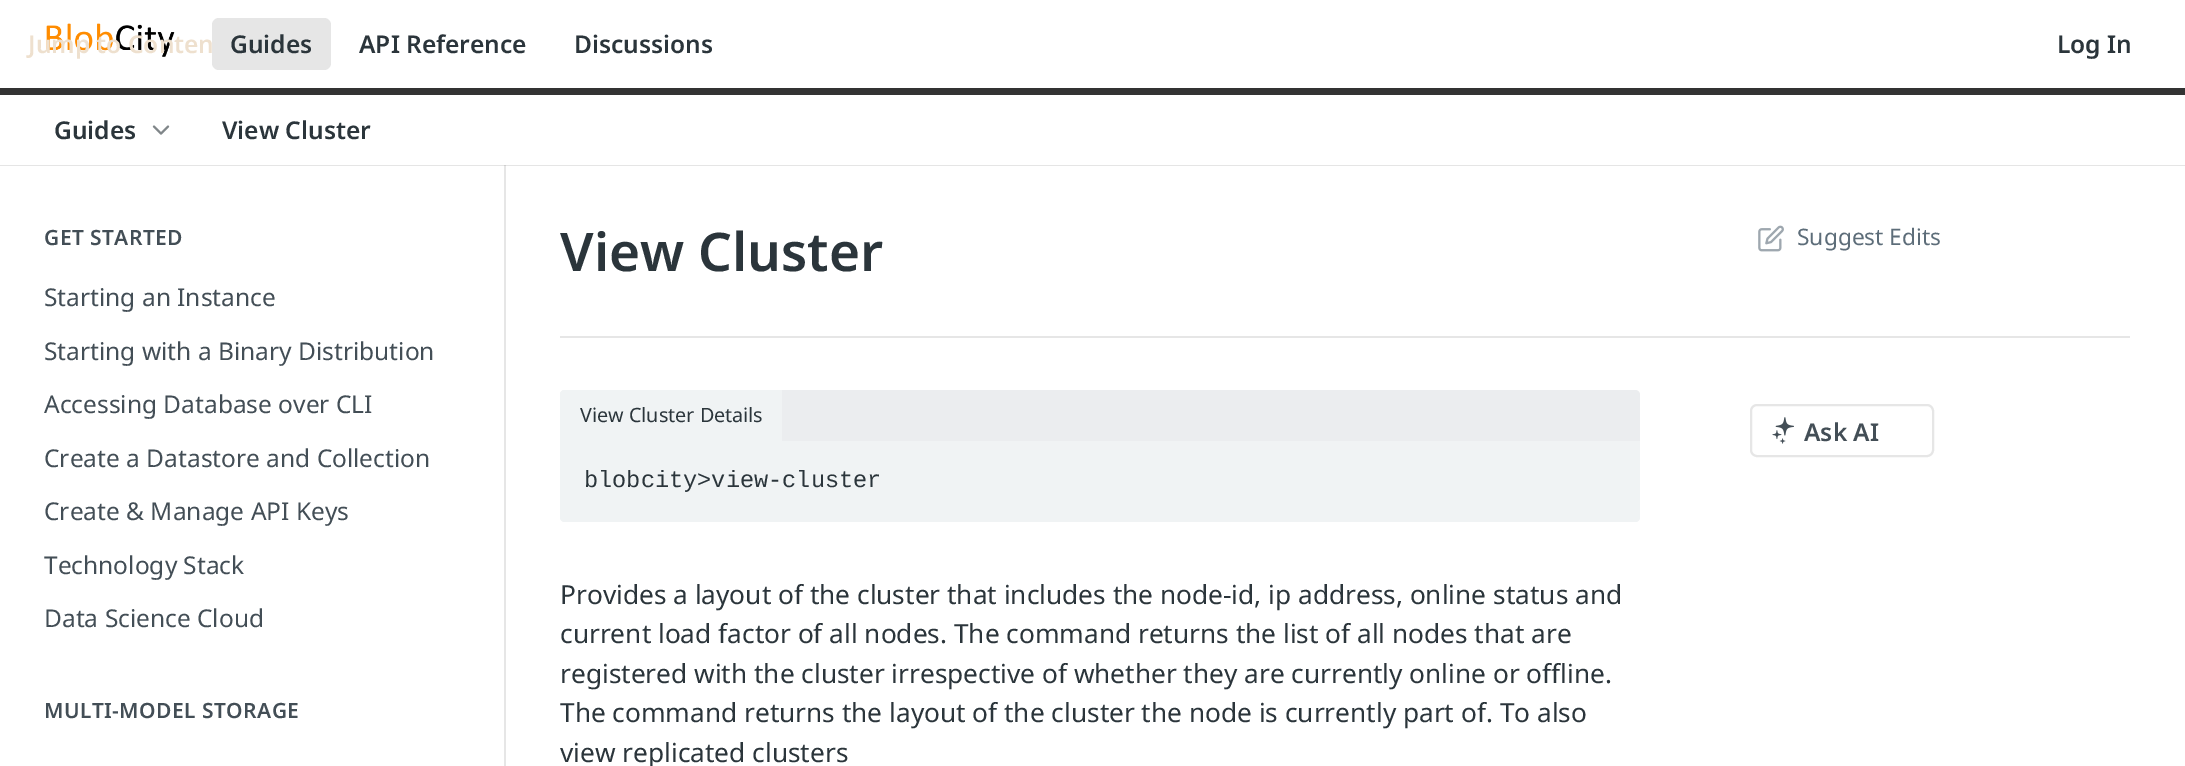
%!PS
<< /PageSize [2185 766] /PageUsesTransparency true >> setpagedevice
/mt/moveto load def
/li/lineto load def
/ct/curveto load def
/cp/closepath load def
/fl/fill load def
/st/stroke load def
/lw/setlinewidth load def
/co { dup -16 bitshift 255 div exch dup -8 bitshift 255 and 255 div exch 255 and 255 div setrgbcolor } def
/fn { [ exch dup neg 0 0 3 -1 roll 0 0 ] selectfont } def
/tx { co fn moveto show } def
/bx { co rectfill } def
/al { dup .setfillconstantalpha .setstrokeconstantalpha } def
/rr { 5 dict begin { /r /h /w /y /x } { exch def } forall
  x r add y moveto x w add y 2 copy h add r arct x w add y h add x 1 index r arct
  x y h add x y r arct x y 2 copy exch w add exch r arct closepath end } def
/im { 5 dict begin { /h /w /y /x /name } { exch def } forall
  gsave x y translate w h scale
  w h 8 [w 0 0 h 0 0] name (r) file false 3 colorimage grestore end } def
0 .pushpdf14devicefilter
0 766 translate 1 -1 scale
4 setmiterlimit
0 0 2185 766 16#FFFFFF bx
504 165 2 601 16#E6E6E6 bx
0.1 al
16#000000 co
0 164 mt 0 166 li 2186 166 li 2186 2 li 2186 164 li cp fl
1 al
0 164 2185 1 16#FFFFFF bx
0 88 2185 7 16#333333 bx
(media/1.raw) 46 23 129 34 im
16#E6E6E6 co
212 18 119 52 7 rr fl
(media/2.raw) 152 125 18 10 im
560 336 1570 2 16#E6E6E6 bx
(media/3.raw) 1758 225 26 27 im
16#EBEDEF co
565 390 mt 1635 390 li 1638 390 1640 392 1640 395 ct 1640 441 li 560 441 li 560 395 li 560 392 562 390 565 390 ct cp fl
16#F0F3F4 co
565 390 mt 782 390 li 782 441 li 560 441 li 560 395 li 560 392 562 390 565 390 ct cp fl
560 441 mt 1640 441 li 1640 517 li 1640 520 1638 522 1635 522 ct 565 522 li 562 522 560 520 560 517 ct cp fl
560 441 1080 81 5 rr fl
16#E6E6E6 co
2 lw
1751 405 182 51 6 rr st
(media/4.raw) 1772 417 22 27 im
(Jump to Conten) 28 53 /NotoSans-SemiBold 24.5 16#EEE0CE tx
(Guides) 230 53 /NotoSans-SemiBold 24.5 16#2B353B tx
(API Reference) 359 53 /NotoSans-SemiBold 24.5 16#2B353B tx
(Discussions) 574 53 /NotoSans-SemiBold 24.5 16#2B353B tx
(Log In) 2057 53 /NotoSans-SemiBold 24.5 16#2B353B tx
(Guides) 54 139 /NotoSans-SemiBold 24.5 16#2B353B tx
(View Cluster) 222 139 /NotoSans-SemiBold 24.5 16#2B353B tx
/NotoSans-SemiBold 21 fn
16#434E56 co
44 245 mt .4 0 (GET STARTED) ashow
(Starting an Instance) 44 306 /NotoSans-Regular 24.5 16#434E56 tx
(Starting with a Binary Distribution) 44 360 /NotoSans-Regular 24.5 16#434E56 tx
(Accessing Database over CLI) 44 413 /NotoSans-Regular 24.5 16#434E56 tx
(Create a Datastore and Collection) 44 467 /NotoSans-Regular 24.5 16#434E56 tx
(Create & Manage API Keys) 44 520 /NotoSans-Regular 24.5 16#434E56 tx
(Technology Stack) 44 574 /NotoSans-Regular 24.5 16#434E56 tx
(Data Science Cloud) 44 627 /NotoSans-Regular 24.5 16#434E56 tx
/NotoSans-SemiBold 21 fn
44 718 mt .4 0 (MULTI-MODEL STORAGE) ashow
(View Cluster) 560 271 /NotoSans-SemiBold 53.25 16#2B353B tx
(Suggest Edits) 1797 245 /NotoSans-Regular 22.75 16#5D6D79 tx
(View Cluster Details) 580 422 /NotoSans-Regular 19.75 16#2B353B tx
(blobcity>view-cluster) 584 487 /LiberationMono-Regular 23.6 16#2B353B tx
(Provides a layout of the cluster that includes the node-id, ip address, online status and) 560 604 /NotoSans-Regular 26.25 16#2B353B tx
(current load factor of all nodes. The command returns the list of all nodes that are) 560 643 /NotoSans-Regular 26.25 16#2B353B tx
(registered with the cluster irrespective of whether they are currently online or offline.) 560 683 /NotoSans-Regular 26.25 16#2B353B tx
(The command returns the layout of the cluster the node is currently part of. To also) 560 722 /NotoSans-Regular 26.25 16#2B353B tx
(view replicated clusters) 560 762 /NotoSans-Regular 26.25 16#2B353B tx
(Ask AI) 1804 441 /NotoSans-SemiBold 24.5 16#434E56 tx
.poppdf14devicefilter showpage
